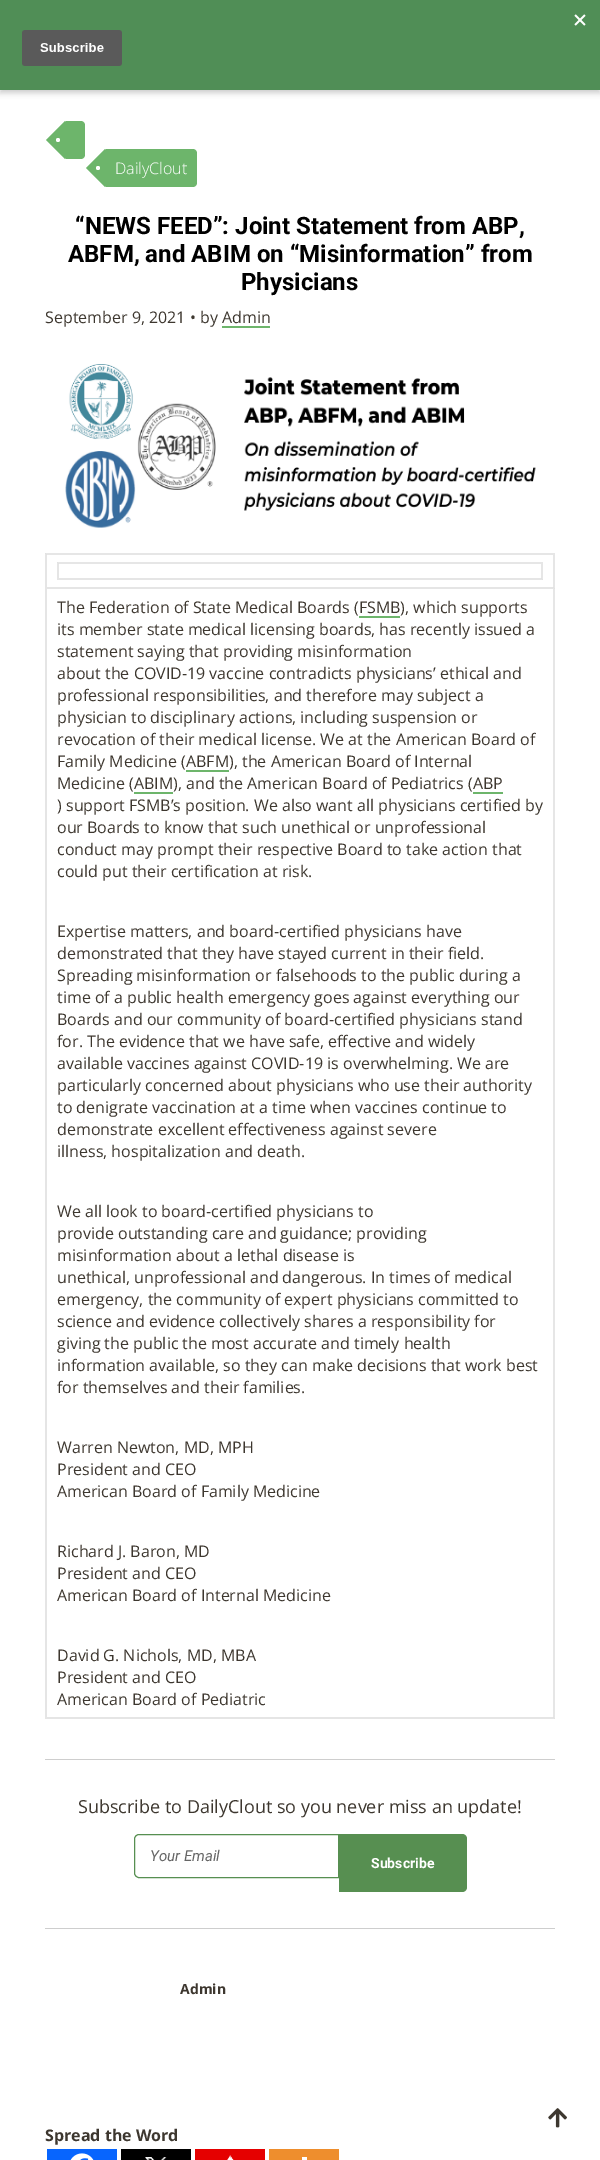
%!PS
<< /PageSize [600 2160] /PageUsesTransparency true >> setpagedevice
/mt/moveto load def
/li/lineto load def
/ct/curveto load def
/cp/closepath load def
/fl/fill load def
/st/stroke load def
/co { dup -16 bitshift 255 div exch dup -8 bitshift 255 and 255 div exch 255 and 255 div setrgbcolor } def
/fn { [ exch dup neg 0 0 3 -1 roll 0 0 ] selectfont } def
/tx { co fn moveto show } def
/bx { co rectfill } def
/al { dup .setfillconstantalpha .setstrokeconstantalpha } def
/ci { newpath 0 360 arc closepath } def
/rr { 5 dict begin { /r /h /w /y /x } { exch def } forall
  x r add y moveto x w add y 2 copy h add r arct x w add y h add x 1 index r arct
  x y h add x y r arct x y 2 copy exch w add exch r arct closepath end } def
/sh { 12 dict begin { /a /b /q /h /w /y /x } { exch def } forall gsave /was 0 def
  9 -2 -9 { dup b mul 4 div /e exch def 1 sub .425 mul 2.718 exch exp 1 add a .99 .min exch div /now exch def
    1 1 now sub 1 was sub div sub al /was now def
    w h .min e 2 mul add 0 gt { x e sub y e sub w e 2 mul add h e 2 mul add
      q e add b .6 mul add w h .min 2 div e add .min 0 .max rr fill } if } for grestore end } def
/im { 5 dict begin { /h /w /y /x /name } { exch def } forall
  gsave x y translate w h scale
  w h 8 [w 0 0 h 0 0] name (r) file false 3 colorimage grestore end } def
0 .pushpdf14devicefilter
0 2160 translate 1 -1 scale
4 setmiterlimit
0 0 600 2160 16#FFFFFF bx
16#000000 co
0 3 600 90 0 3 .2 sh
(media/1.raw) 0 0 600 90 im
16#6DB56B co
67 121 mt 81 121 li 83 121 85 123 85 125 ct 85 155 li 85 157 83 159 81 159 ct 67 159 li 65.5 159 64 157.5 64 156 ct 64 124 li 64 122.5 65.5 121 67 121 ct cp fl
65 121 mt 65 159 li 46 140 li cp fl
16#FFFFFF co
58 140 2 ci fl
16#6DB56B co
107 149 mt 193 149 li 195 149 197 151 197 153 ct 197 183 li 197 185 195 187 193 187 ct 107 187 li 105.5 187 104 185.5 104 184 ct 104 152 li 104 150.5 105.5 149 107 149 ct cp fl
105 149 mt 105 187 li 86 168 li cp fl
16#FFFFFF co
98 168 2 ci fl
(media/2.raw) 65 364 471 164 im
16#E6E6E6 co
45 553 mt 555 553 li 555 555 li 47 555 li cp fl
0.1 al
16#000000 co
45 1719 mt 45 553 li 47 555 li 47 1719 li cp fl
1 al
16#E6E6E6 co
555 555 mt 555 589 li 553 587 li 553 555 li cp fl
0.1 al
16#000000 co
555 589 mt 47 589 li 47 587 li 553 587 li cp fl
1 al
16#E6E6E6 co
57 562 mt 543 562 li 543 564 li 59 564 li cp fl
0.1 al
16#000000 co
57 580 mt 57 562 li 59 564 li 59 580 li cp fl
1 al
16#E6E6E6 co
543 564 mt 543 580 li 541 578 li 541 564 li cp fl
0.1 al
16#000000 co
543 580 mt 59 580 li 59 578 li 541 578 li cp fl
1 al
16#E6E6E6 co
555 589 mt 555 1719 li 553 1717 li 553 589 li cp fl
0.1 al
16#000000 co
555 1719 mt 47 1719 li 47 1717 li 553 1717 li cp fl
1 al
134 792 39 2 16#6DB56B bx
473 792 30 2 16#6DB56B bx
45 1759 510 1 16#CECECE bx
45 1928 510 1 16#CECECE bx
16#578F51 co
139 1834.5 mt 338.5 1834.5 li 338.5 1877.5 li 139 1877.5 li 136.5 1877.5 134.5 1875.5 134.5 1873 ct 134.5 1839 li 134.5 1836.5 136.5 1834.5 139 1834.5 ct cp st
339 1834 mt 462 1834 li 465 1834 467 1836 467 1839 ct 467 1887 li 467 1890 465 1892 462 1892 ct 339 1892 li cp fl
47 2149 70 11 16#0765FE bx
(media/3.raw) 70 2153 24 7 im
121 2149 70 11 16#000000 bx
(media/4.raw) 145 2157 22 3 im
195 2149 70 11 16#E50000 bx
(media/5.raw) 227 2155 7 5 im
269 2149 70 11 16#EE8E2D bx
302 2157 5 3 16#FFFFFF bx
(media/6.raw) 548 2108 19 20 im
(DailyClout) 115 174 /OpenSans-Light 16 16#FFFFFF tx
(“NEWS FEED”: Joint Statement from ABP,) 75 234 /Roboto-Bold 24 16#000000 tx
(ABFM, and ABIM on “Misinformation” from) 68 262 /Roboto-Bold 24 16#000000 tx
(Physicians) 241 290 /Roboto-Bold 24 16#000000 tx
(September 9, 2021 • by Admin) 45 323 /OpenSans-Regular 16 16#3D372F tx
222 326 48 2 16#6DB56B bx
(The Federation of State Medical Boards \(FSMB\), which supports) 57 613 /OpenSans-Regular 16 16#3D372F tx
359 616 41 2 16#6DB56B bx
(its member state medical licensing boards, has recently issued a) 57 635 /OpenSans-Regular 16 16#3D372F tx
(statement saying that providing misinformation) 57 657 /OpenSans-Regular 16 16#3D372F tx
(about the COVID-19 vaccine contradicts physicians’ ethical and) 57 679 /OpenSans-Regular 16 16#3D372F tx
(professional responsibilities, and therefore may subject a) 57 701 /OpenSans-Regular 16 16#3D372F tx
(physician to disciplinary actions, including suspension or) 57 723 /OpenSans-Regular 16 16#3D372F tx
(revocation of their medical license. We at the American Board of) 57 745 /OpenSans-Regular 16 16#3D372F tx
(Family Medicine \(ABFM\), the American Board of Internal) 57 767 /OpenSans-Regular 16 16#3D372F tx
186 770 43 2 16#6DB56B bx
(Medicine \(ABIM\), and the American Board of Pediatrics \(ABP) 57 789 /OpenSans-Regular 16 16#3D372F tx
(\) support FSMB’s position. We also want all physicians certified by) 57 811 /OpenSans-Regular 16 16#3D372F tx
(our Boards to know that such unethical or unprofessional) 57 833 /OpenSans-Regular 16 16#3D372F tx
(conduct may prompt their respective Board to take action that) 57 855 /OpenSans-Regular 16 16#3D372F tx
(could put their certification at risk.) 57 877 /OpenSans-Regular 16 16#3D372F tx
(Expertise matters, and board-certified physicians have) 57 937 /OpenSans-Regular 16 16#3D372F tx
(demonstrated that they have stayed current in their field.) 57 959 /OpenSans-Regular 16 16#3D372F tx
(Spreading misinformation or falsehoods to the public during a) 57 981 /OpenSans-Regular 16 16#3D372F tx
(time of a public health emergency goes against everything our) 57 1003 /OpenSans-Regular 16 16#3D372F tx
(Boards and our community of board-certified physicians stand) 57 1025 /OpenSans-Regular 16 16#3D372F tx
(for. The evidence that we have safe, effective and widely) 57 1047 /OpenSans-Regular 16 16#3D372F tx
(available vaccines against COVID-19 is overwhelming. We are) 57 1069 /OpenSans-Regular 16 16#3D372F tx
(particularly concerned about physicians who use their authority) 57 1091 /OpenSans-Regular 16 16#3D372F tx
(to denigrate vaccination at a time when vaccines continue to) 57 1113 /OpenSans-Regular 16 16#3D372F tx
(demonstrate excellent effectiveness against severe) 57 1135 /OpenSans-Regular 16 16#3D372F tx
(illness, hospitalization and death.) 57 1157 /OpenSans-Regular 16 16#3D372F tx
(We all look to board-certified physicians to) 57 1217 /OpenSans-Regular 16 16#3D372F tx
(provide outstanding care and guidance; providing) 57 1239 /OpenSans-Regular 16 16#3D372F tx
(misinformation about a lethal disease is) 57 1261 /OpenSans-Regular 16 16#3D372F tx
(unethical, unprofessional and dangerous. In times of medical) 57 1283 /OpenSans-Regular 16 16#3D372F tx
(emergency, the community of expert physicians committed to) 57 1305 /OpenSans-Regular 16 16#3D372F tx
(science and evidence collectively shares a responsibility for) 57 1327 /OpenSans-Regular 16 16#3D372F tx
(giving the public the most accurate and timely health) 57 1349 /OpenSans-Regular 16 16#3D372F tx
(information available, so they can make decisions that work best) 57 1371 /OpenSans-Regular 16 16#3D372F tx
(for themselves and their families.) 57 1393 /OpenSans-Regular 16 16#3D372F tx
(Warren Newton, MD, MPH) 57 1453 /OpenSans-Regular 16 16#3D372F tx
(President and CEO) 57 1475 /OpenSans-Regular 16 16#3D372F tx
(American Board of Family Medicine) 57 1497 /OpenSans-Regular 16 16#3D372F tx
(Richard J. Baron, MD) 57 1557 /OpenSans-Regular 16 16#3D372F tx
(President and CEO) 57 1579 /OpenSans-Regular 16 16#3D372F tx
(American Board of Internal Medicine) 57 1601 /OpenSans-Regular 16 16#3D372F tx
(David G. Nichols, MD, MBA) 57 1661 /OpenSans-Regular 16 16#3D372F tx
(President and CEO) 57 1683 /OpenSans-Regular 16 16#3D372F tx
(American Board of Pediatric) 57 1705 /OpenSans-Regular 16 16#3D372F tx
(Subscribe to DailyClout so you never miss an update!) 78 1813 /OpenSans-Regular 18 16#3D372F tx
(Your Email) 150 1861 /Roboto-Italic 15 16#666666 tx
(Subscribe) 371 1868 /Roboto-Bold 14 16#FFFFFF tx
(Admin) 180 1994 /OpenSans-Bold 14 16#3D372F tx
(Spread the Word) 45 2141 /OpenSans-Bold 16 16#3D372F tx
.poppdf14devicefilter showpage
